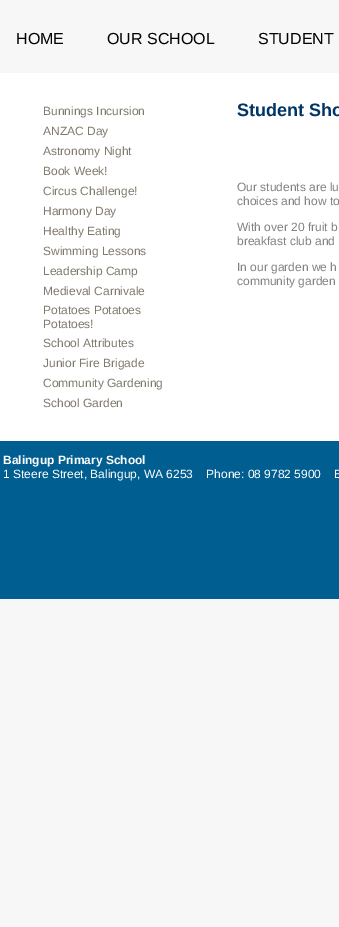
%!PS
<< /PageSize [339 927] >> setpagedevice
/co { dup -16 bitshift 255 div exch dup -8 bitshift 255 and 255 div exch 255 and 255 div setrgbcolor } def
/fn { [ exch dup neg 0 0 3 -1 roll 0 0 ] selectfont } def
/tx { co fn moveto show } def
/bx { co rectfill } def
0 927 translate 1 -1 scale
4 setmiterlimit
0 0 339 927 16#F7F7F7 bx
0 73 339 368 16#FFFFFF bx
0 441 339 158 16#005E91 bx
(HOME) 16 44 /LiberationSans-Regular 16 16#000000 tx
(OUR SCHOOL) 107 44 /LiberationSans-Regular 16 16#000000 tx
(STUDENT) 258 44 /LiberationSans-Regular 16 16#000000 tx
(Bunnings Incursion) 43 115 /LiberationSans-Regular 12 16#807A6D tx
(ANZAC Day) 43 135 /LiberationSans-Regular 12 16#807A6D tx
(Astronomy Night) 43 155 /LiberationSans-Regular 12 16#807A6D tx
(Book Week!) 43 175 /LiberationSans-Regular 12 16#807A6D tx
(Circus Challenge!) 43 195 /LiberationSans-Regular 12 16#807A6D tx
(Harmony Day) 43 215 /LiberationSans-Regular 12 16#807A6D tx
(Healthy Eating) 43 235 /LiberationSans-Regular 12 16#807A6D tx
(Swimming Lessons) 43 255 /LiberationSans-Regular 12 16#807A6D tx
(Leadership Camp) 43 275 /LiberationSans-Regular 12 16#807A6D tx
(Medieval Carnivale) 43 295 /LiberationSans-Regular 12 16#807A6D tx
(Potatoes Potatoes) 43 314 /LiberationSans-Regular 12 16#807A6D tx
(Potatoes!) 43 328 /LiberationSans-Regular 12 16#807A6D tx
(School Attributes) 43 347 /LiberationSans-Regular 12 16#807A6D tx
(Junior Fire Brigade) 43 367 /LiberationSans-Regular 12 16#807A6D tx
(Community Gardening) 43 387 /LiberationSans-Regular 12 16#807A6D tx
(School Garden) 43 407 /LiberationSans-Regular 12 16#807A6D tx
(Student Sho) 237 116 /LiberationSans-Bold 18 16#003565 tx
(Our students are lu) 237 191 /LiberationSans-Regular 12 16#818181 tx
(choices and how to) 237 205 /LiberationSans-Regular 12 16#818181 tx
(With over 20 fruit b) 237 231 /LiberationSans-Regular 12 16#818181 tx
(breakfast club and) 237 245 /LiberationSans-Regular 12 16#818181 tx
(In our garden we h) 237 271 /LiberationSans-Regular 12 16#818181 tx
(community garden) 237 285 /LiberationSans-Regular 12 16#818181 tx
(Balingup Primary School) 3 464 /LiberationSans-Bold 12 16#FFFFFF tx
(1 Steere Street, Balingup, WA 6253    Phone: 08 9782 5900    E) 3 478 /LiberationSans-Regular 12 16#FFFFFF tx
showpage
